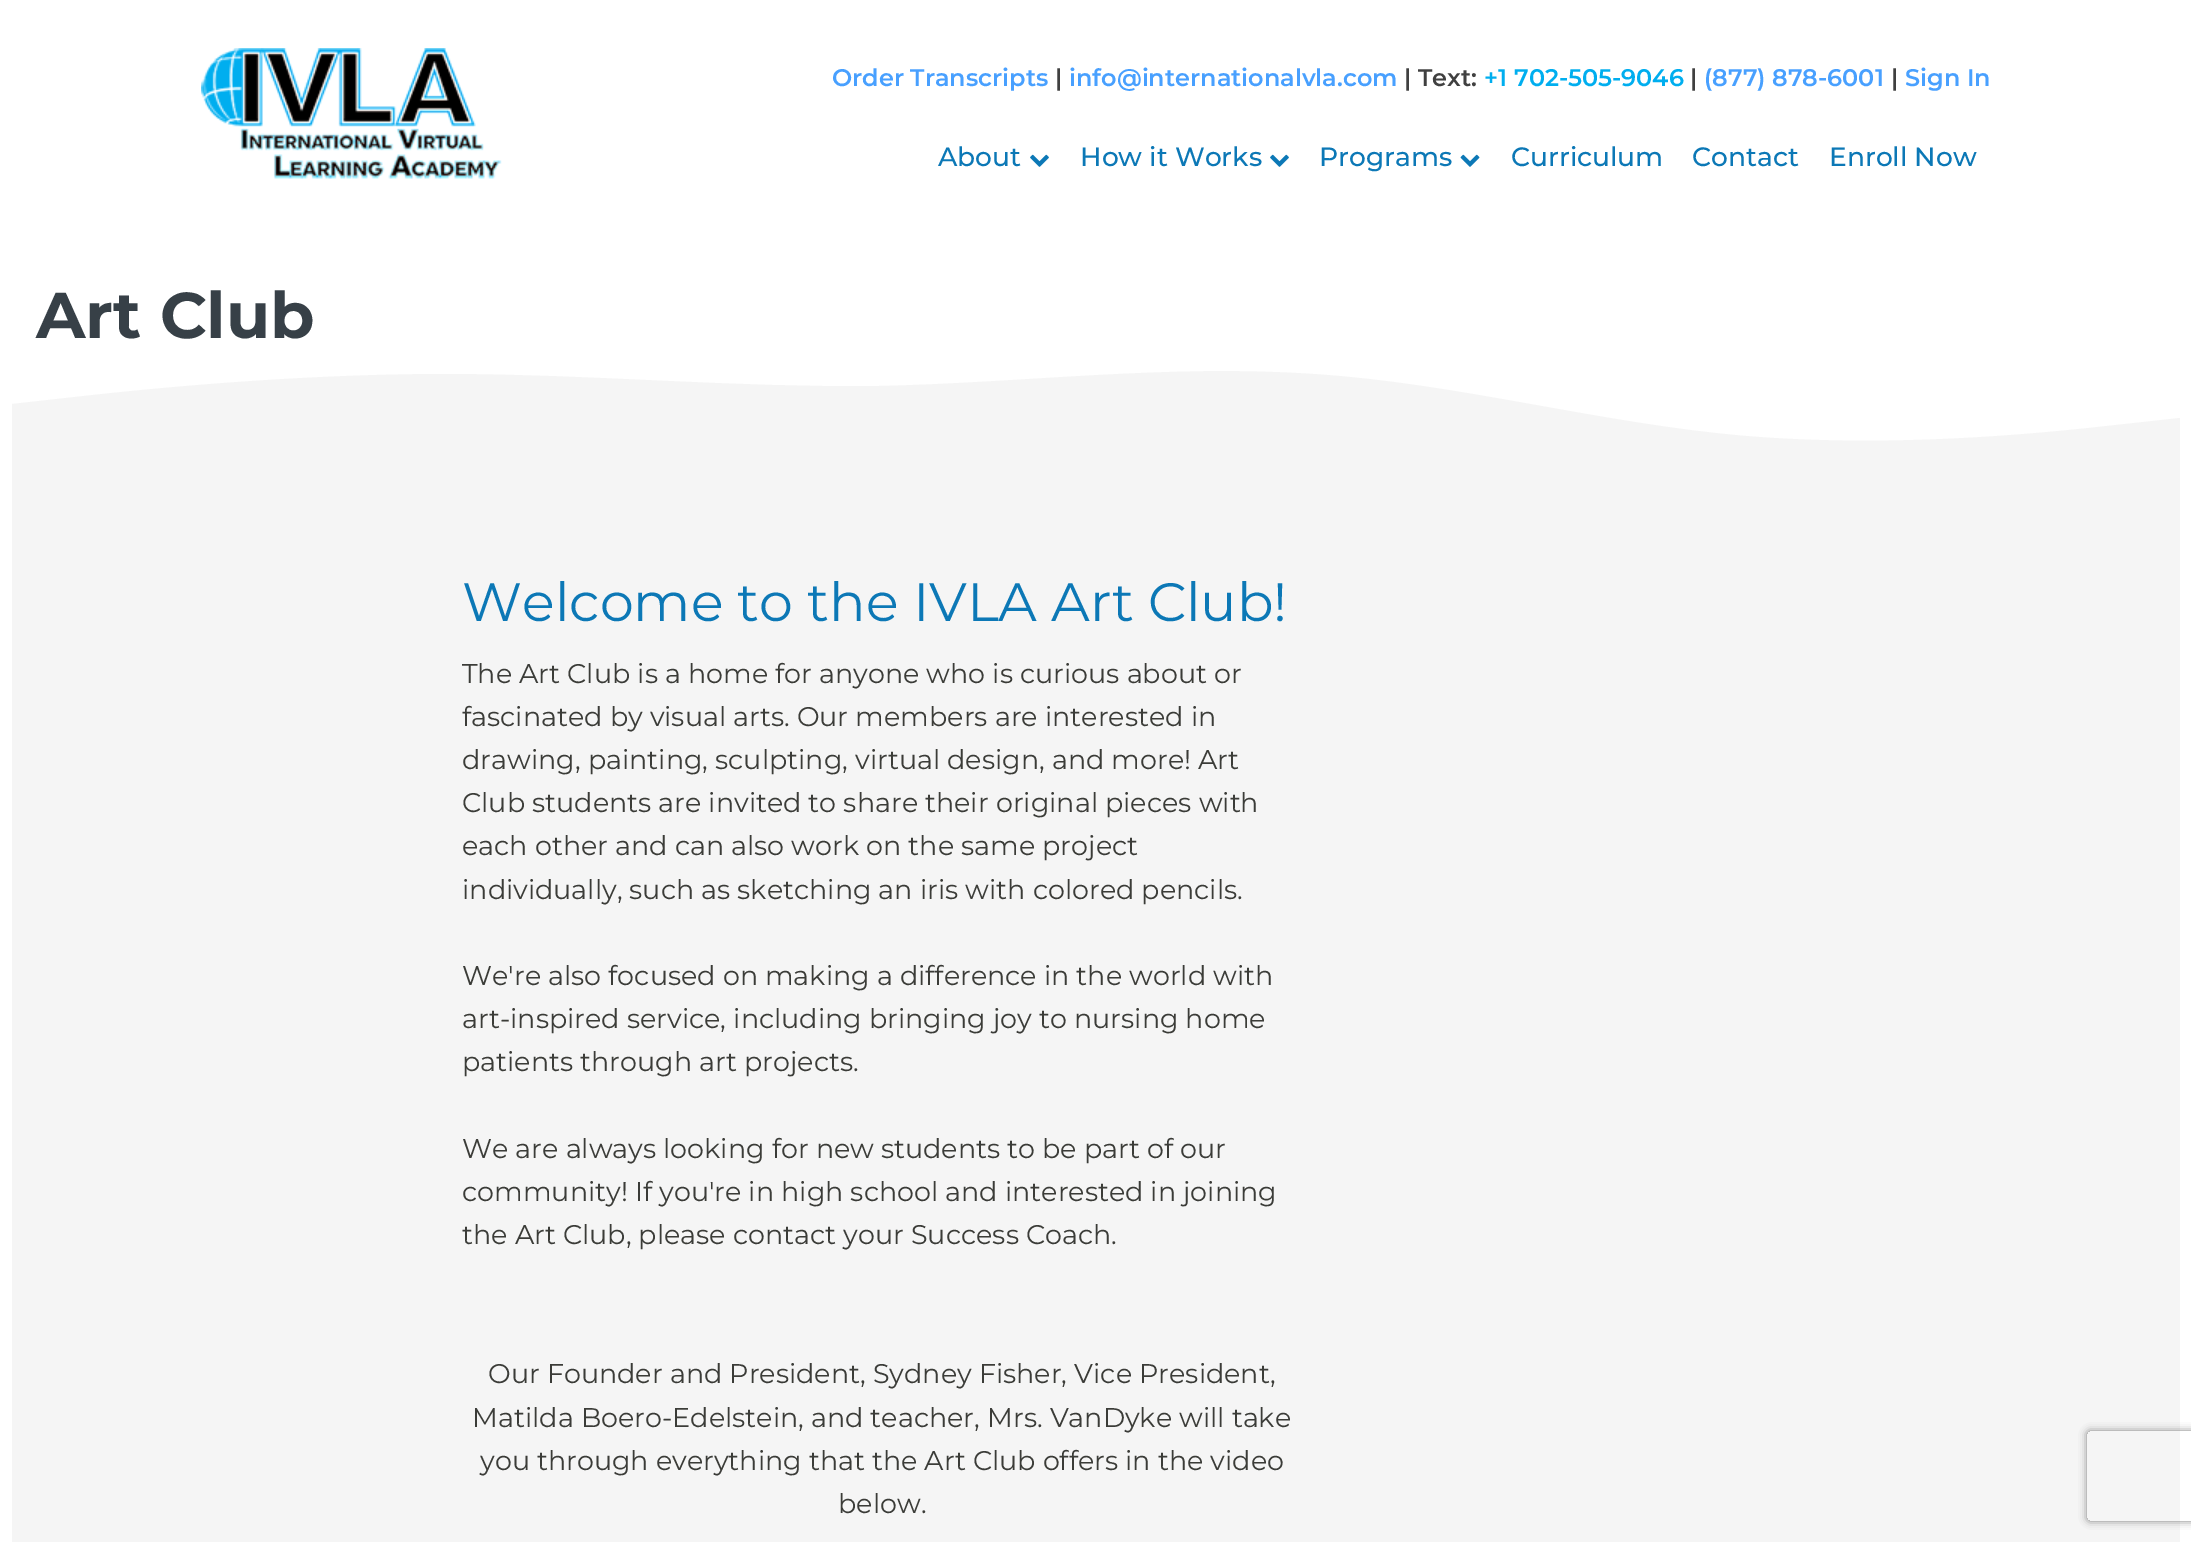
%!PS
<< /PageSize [2191 1542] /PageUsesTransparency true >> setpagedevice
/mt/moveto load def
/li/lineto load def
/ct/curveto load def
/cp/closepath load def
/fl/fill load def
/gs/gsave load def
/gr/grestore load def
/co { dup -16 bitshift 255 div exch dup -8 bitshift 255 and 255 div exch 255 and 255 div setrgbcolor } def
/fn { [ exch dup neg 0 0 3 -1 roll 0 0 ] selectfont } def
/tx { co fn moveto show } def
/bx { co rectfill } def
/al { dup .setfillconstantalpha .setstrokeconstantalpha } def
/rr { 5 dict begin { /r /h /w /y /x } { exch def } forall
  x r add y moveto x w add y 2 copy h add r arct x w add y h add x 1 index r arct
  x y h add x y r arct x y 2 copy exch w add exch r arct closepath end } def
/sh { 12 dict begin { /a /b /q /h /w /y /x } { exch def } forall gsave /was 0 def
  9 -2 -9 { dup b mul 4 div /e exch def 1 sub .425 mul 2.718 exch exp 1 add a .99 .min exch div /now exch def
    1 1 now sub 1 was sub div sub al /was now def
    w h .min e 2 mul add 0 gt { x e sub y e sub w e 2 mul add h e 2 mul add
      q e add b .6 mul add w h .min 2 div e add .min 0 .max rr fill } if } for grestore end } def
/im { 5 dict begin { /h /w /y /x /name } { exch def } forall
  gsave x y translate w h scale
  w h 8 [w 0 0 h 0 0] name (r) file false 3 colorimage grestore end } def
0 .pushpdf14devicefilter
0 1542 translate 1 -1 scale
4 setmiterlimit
0 0 2191 1542 16#FFFFFF bx
(media/1.raw) 201 48 301 131 im
(media/2.raw) 1030 154 19 13 im
(media/2.raw) 1270 154 19 13 im
(media/3.raw) 1460 154 20 13 im
16#F5F5F5 co
12 404 mt 84 396 li 156 388 301 374 446 374 ct 590 374 735 388 879 386 ct 1024 383 1168 364 1313 374 ct 1457 383 1602 424 1746 436 ct 1891 448 2035 434 2107 426 ct 2180 418 li 2180 478 li 12 478 li cp fl
12 478 2168 1064 16#F5F5F5 bx
gs
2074 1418 mt 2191 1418 li 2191 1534 li 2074 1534 li cp 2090 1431 mt 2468 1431 li 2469.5 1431 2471 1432.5 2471 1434 ct 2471 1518 li 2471 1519.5 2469.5 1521 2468 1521 ct 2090 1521 li 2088.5 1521 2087 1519.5 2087 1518 ct 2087 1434 li 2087 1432.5 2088.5 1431 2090 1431 ct cp eoclip newpath
16#808080 co
2087 1431 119 90 3 4 1 sh
gr
(Order Transcripts) 832 86 /Montserrat-SemiBold 24 16#48A0FF tx
(|) 1055 86 /Montserrat-SemiBold 24 16#404040 tx
(info@internationalvla.com) 1069 86 /Montserrat-SemiBold 24 16#48A0FF tx
(| Text:) 1404 86 /Montserrat-SemiBold 24 16#404040 tx
(+1 702-505-9046) 1484 86 /Montserrat-SemiBold 24 16#00AEEF tx
(|) 1690 86 /Montserrat-SemiBold 24 16#404040 tx
(\(877\) 878-6001) 1704 86 /Montserrat-SemiBold 24 16#48A0FF tx
(|) 1891 86 /Montserrat-SemiBold 24 16#404040 tx
(Sign In) 1905 86 /Montserrat-SemiBold 24 16#48A0FF tx
(About) 938 166 /Montserrat-Medium 26.5 16#0C78B6 tx
(How it Works) 1080 166 /Montserrat-Medium 26.5 16#0C78B6 tx
(Programs) 1319 166 /Montserrat-Medium 26.5 16#0C78B6 tx
(Curriculum) 1511 166 /Montserrat-Medium 26.5 16#0C78B6 tx
(Contact) 1692 166 /Montserrat-Medium 26.5 16#0C78B6 tx
(Enroll Now) 1829 166 /Montserrat-Medium 26.5 16#0C78B6 tx
(Art Club) 36 338 /Montserrat-Bold 64.5 16#374047 tx
(Welcome to the IVLA Art Club!) 462 621 /Montserrat-Regular 54 16#0C78B6 tx
(The Art Club is a home for anyone who is curious about or) 462 683 /Montserrat-Regular 27 16#3B3C38 tx
(fascinated by visual arts. Our members are interested in) 462 726 /Montserrat-Regular 27 16#3B3C38 tx
(drawing, painting, sculpting, virtual design, and more! Art) 462 769 /Montserrat-Regular 27 16#3B3C38 tx
(Club students are invited to share their original pieces with) 462 812 /Montserrat-Regular 27 16#3B3C38 tx
(each other and can also work on the same project) 462 855 /Montserrat-Regular 27 16#3B3C38 tx
(individually, such as sketching an iris with colored pencils.) 462 899 /Montserrat-Regular 27 16#3B3C38 tx
(We're also focused on making a difference in the world with) 462 985 /Montserrat-Regular 27 16#3B3C38 tx
(art-inspired service, including bringing joy to nursing home) 462 1028 /Montserrat-Regular 27 16#3B3C38 tx
(patients through art projects.) 462 1071 /Montserrat-Regular 27 16#3B3C38 tx
(We are always looking for new students to be part of our) 462 1158 /Montserrat-Regular 27 16#3B3C38 tx
(community! If you're in high school and interested in joining) 462 1201 /Montserrat-Regular 27 16#3B3C38 tx
(the Art Club, please contact your Success Coach.) 462 1244 /Montserrat-Regular 27 16#3B3C38 tx
(Our Founder and President, Sydney Fisher, Vice President,) 488 1383 /Montserrat-Regular 27 16#3B3C38 tx
(Matilda Boero-Edelstein, and teacher, Mrs. VanDyke will take) 472 1427 /Montserrat-Regular 27 16#3B3C38 tx
(you through everything that the Art Club offers in the video) 480 1470 /Montserrat-Regular 27 16#3B3C38 tx
(below.) 838 1513 /Montserrat-Regular 27 16#3B3C38 tx
.poppdf14devicefilter showpage
